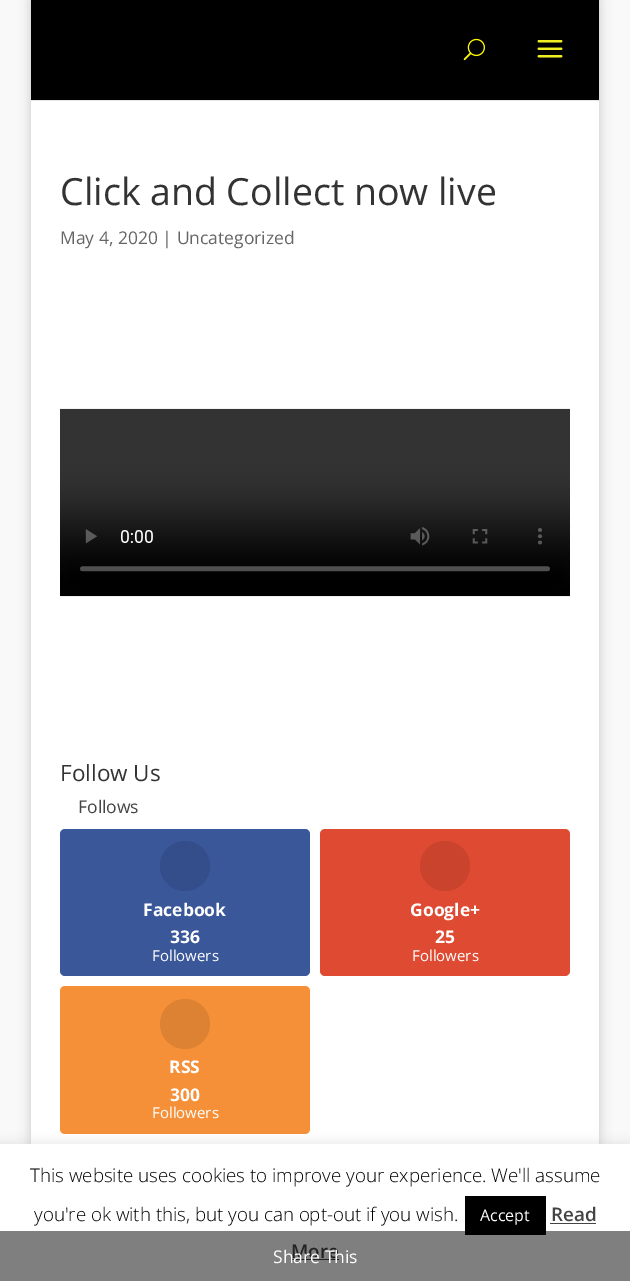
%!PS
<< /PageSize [630 1281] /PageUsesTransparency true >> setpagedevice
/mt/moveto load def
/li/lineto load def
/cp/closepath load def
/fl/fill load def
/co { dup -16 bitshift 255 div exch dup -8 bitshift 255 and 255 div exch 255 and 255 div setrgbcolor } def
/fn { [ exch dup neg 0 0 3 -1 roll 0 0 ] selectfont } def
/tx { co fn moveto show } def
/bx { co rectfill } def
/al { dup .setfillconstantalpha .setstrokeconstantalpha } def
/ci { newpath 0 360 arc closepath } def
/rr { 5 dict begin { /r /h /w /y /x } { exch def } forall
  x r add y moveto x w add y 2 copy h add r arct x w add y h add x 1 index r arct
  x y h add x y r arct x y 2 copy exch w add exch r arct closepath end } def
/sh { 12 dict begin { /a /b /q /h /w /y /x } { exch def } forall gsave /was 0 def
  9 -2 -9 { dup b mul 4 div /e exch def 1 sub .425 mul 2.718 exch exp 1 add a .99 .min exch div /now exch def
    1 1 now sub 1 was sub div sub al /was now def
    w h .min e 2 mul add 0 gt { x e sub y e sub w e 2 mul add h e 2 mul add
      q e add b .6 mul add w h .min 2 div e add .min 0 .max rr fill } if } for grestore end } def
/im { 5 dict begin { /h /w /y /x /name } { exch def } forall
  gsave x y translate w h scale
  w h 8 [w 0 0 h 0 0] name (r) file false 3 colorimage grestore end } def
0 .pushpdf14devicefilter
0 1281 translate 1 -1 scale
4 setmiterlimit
0 0 630 1281 16#F9F9F9 bx
16#000000 co
31 0 568 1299 0 6 .2 sh
16#E6E6E6 co
31 1 mt 31 101 li 599 101 li 599 1 li 599 100 li 31 100 li cp fl
31 0 568 100 16#000000 bx
(media/1.raw) 463 38 22 23 im
(media/2.raw) 537 40 26 18 im
31 101 568 1043 16#FFFFFF bx
(media/3.raw) 60 408 510 189 im
16#3A579A co
60 829 250 147 5 rr fl
16#344E8B co
185 866 25 ci fl
16#DF4A32 co
320 829 250 147 5 rr fl
16#C9432D co
445 866 25 ci fl
16#F59038 co
60 986 250 148 5 rr fl
16#DD8232 co
185 1024 25 ci fl
16#ACABAB co
0 1143 630 137 0 6 .3 sh
0 1144 630 137 16#FFFFFF bx
465 1196 81 39 16#000000 bx
550 1223 46 1 16#444444 bx
291 1259 48 1 16#444444 bx
(Click and Collect now live) 60 205 /OpenSans-Regular 37.5 16#333333 tx
(May 4, 2020 | Uncategorized) 60 244 /OpenSans-Regular 17.5 16#666666 tx
(Follow Us) 60 781 /OpenSans-Regular 22.5 16#333333 tx
(Follows) 78 813 /OpenSans-Regular 17.5 16#444444 tx
(Facebook) 143 916 /OpenSans-Bold 17.5 16#FFFFFF tx
(336) 170 943 /OpenSans-Bold 17.5 16#FFFFFF tx
(Followers) 152 961 /OpenSans-Regular 15 16#FFFFFF tx
(Google+) 410 916 /OpenSans-Bold 17.5 16#FFFFFF tx
(25) 435 943 /OpenSans-Bold 17.5 16#FFFFFF tx
(Followers) 412 961 /OpenSans-Regular 15 16#FFFFFF tx
(RSS) 169 1073 /OpenSans-Bold 17.5 16#FFFFFF tx
(300) 170 1101 /OpenSans-Bold 17.5 16#FFFFFF tx
(Followers) 152 1118 /OpenSans-Regular 15 16#FFFFFF tx
(This website uses cookies to improve your experience. We'll assume) 30 1182 /OpenSans-Light 18.75 16#000000 tx
(you're ok with this, but you can opt-out if you wish.) 34 1221 /OpenSans-Light 18.75 16#000000 tx
(Accept) 480 1221 /OpenSans-Regular 16 16#FFFFFF tx
(Read) 551 1221 /OpenSans-SemiBold 18.75 16#444444 tx
(More) 291 1258 /OpenSans-SemiBold 18.75 16#444444 tx
0.5 al
0 1231 630 50 16#000000 bx
1 al
(Share This) 273 1263 /OpenSans-Regular 17.5 16#FFFFFF tx
.poppdf14devicefilter showpage
